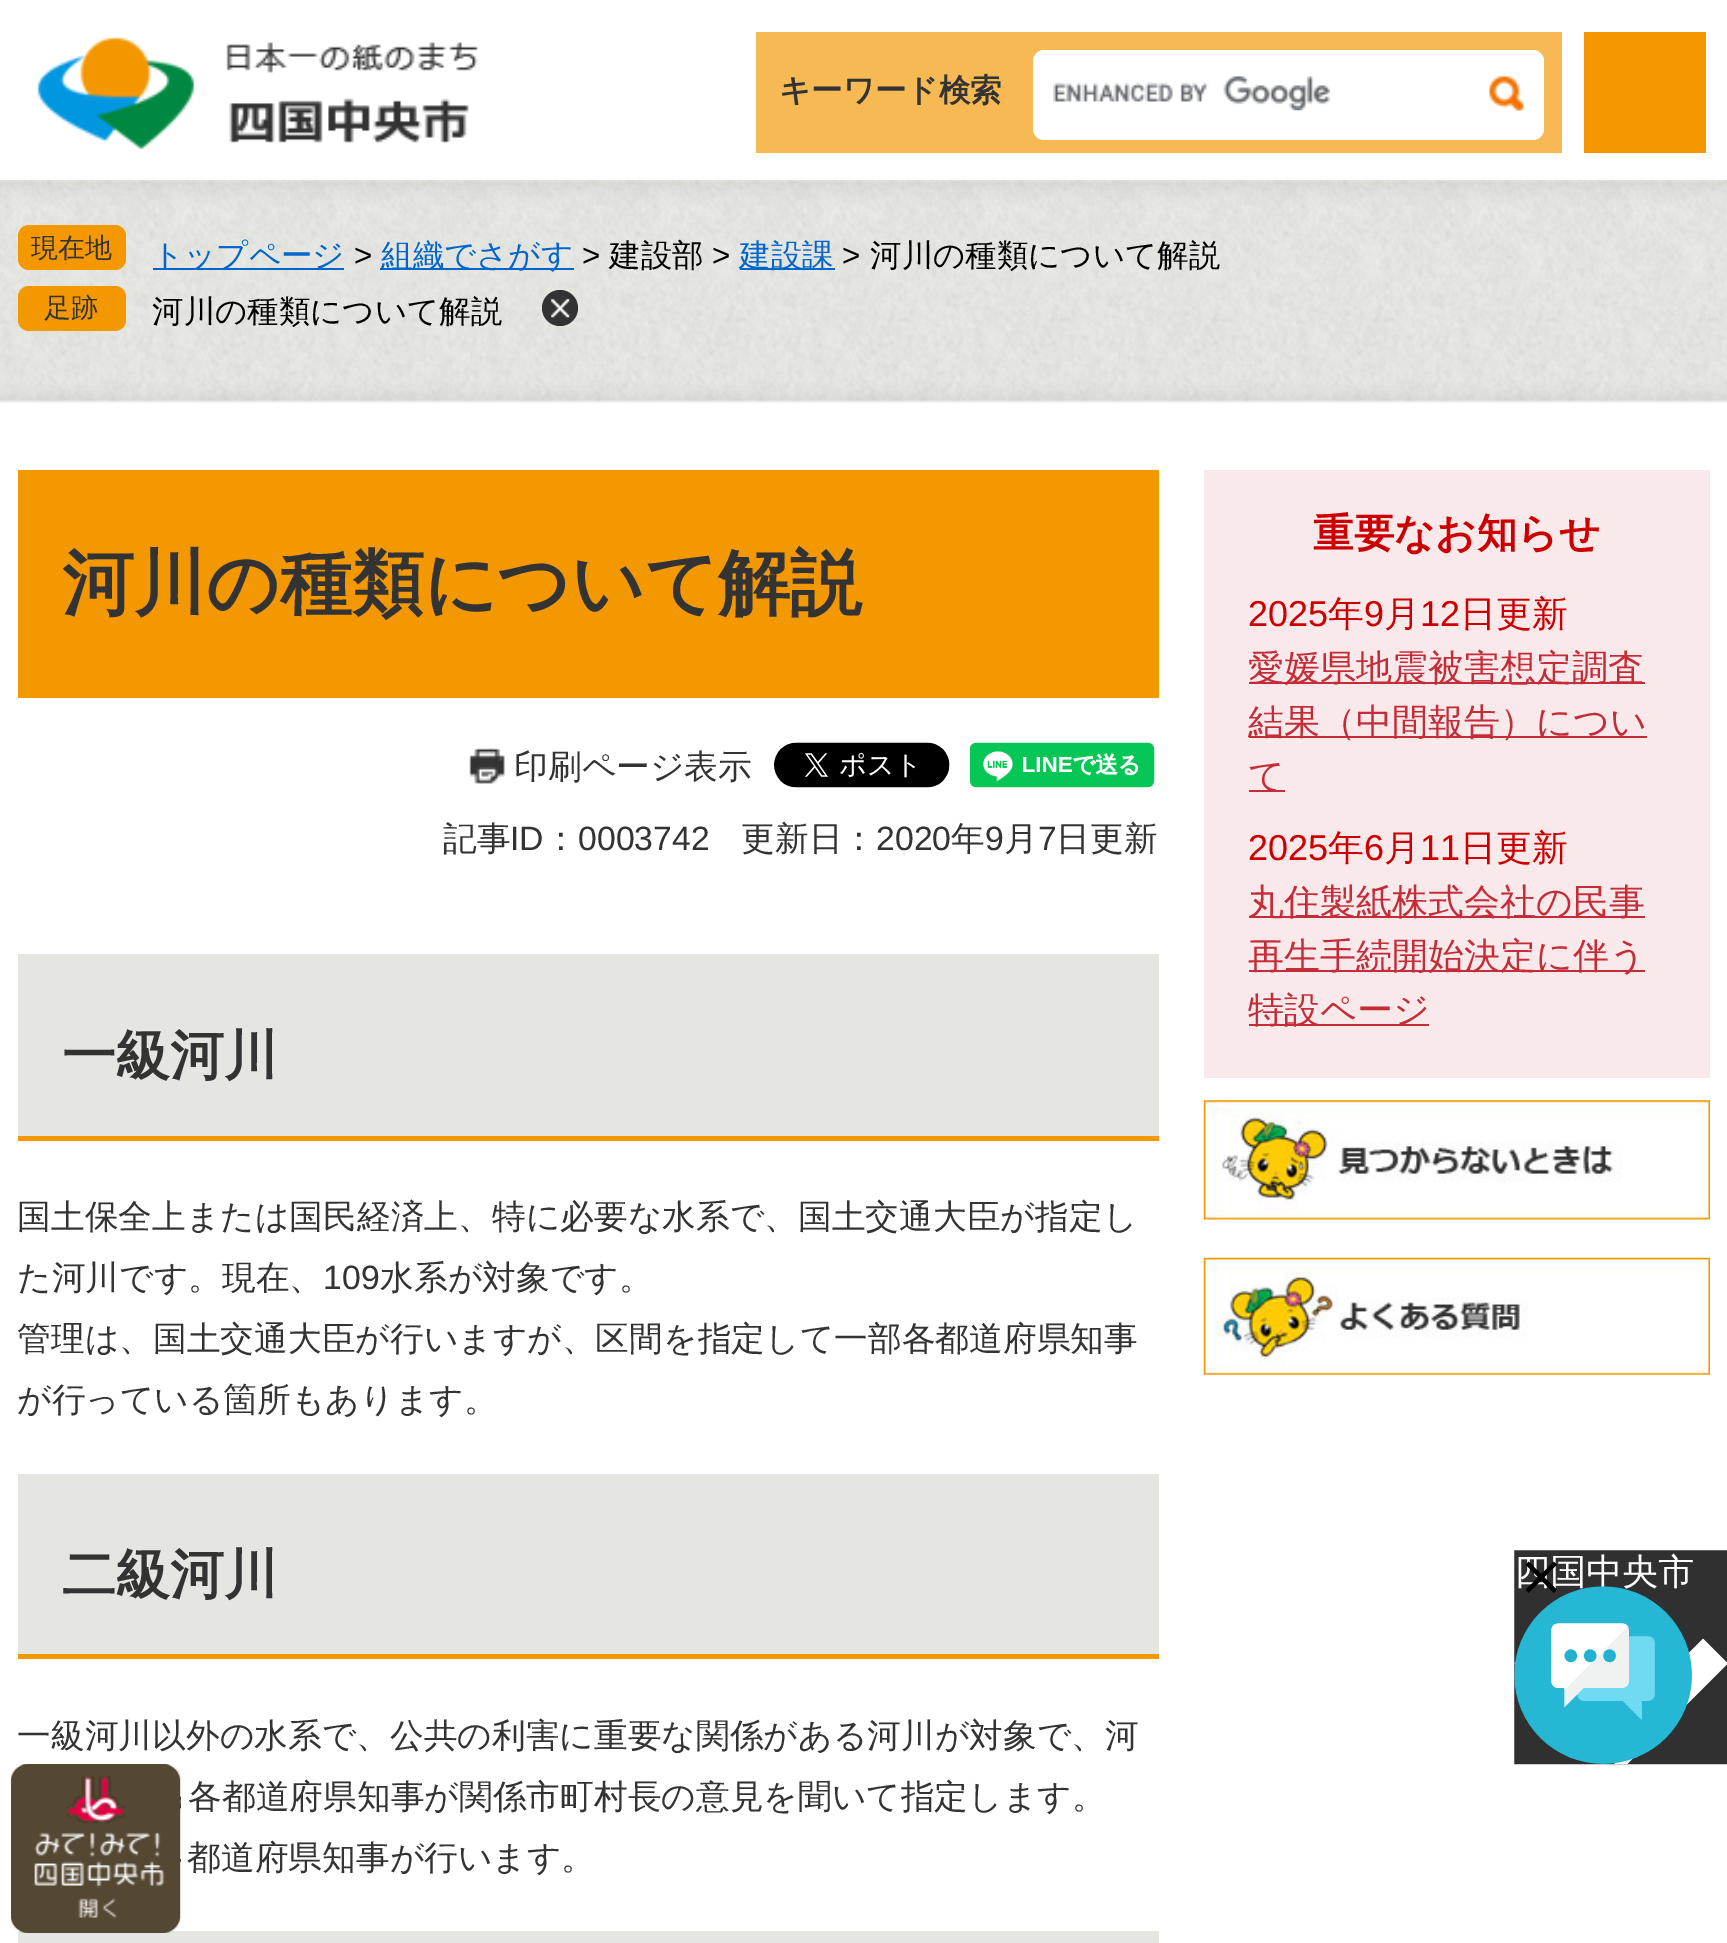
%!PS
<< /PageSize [1727 1943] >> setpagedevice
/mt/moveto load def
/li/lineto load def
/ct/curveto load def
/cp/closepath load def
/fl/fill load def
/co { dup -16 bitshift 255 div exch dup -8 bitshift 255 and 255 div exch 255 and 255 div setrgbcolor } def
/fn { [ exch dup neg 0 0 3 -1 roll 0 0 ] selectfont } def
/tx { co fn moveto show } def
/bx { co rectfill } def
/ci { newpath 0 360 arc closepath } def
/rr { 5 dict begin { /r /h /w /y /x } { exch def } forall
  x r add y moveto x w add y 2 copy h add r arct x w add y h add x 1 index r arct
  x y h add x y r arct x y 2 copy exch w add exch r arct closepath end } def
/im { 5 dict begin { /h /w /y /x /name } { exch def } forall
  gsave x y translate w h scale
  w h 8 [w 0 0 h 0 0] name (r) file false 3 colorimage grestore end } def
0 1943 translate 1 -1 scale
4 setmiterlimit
0 0 1727 1943 16#FFFFFF bx
(media/1.raw) 37 37 441 113 im
756 32 806 121 16#F7B953 bx
16#FFFFFF co
1044 50 mt 1454 50 li 1454 140 li 1044 140 li 1038 140 1033 135 1033 129 ct 1033 61 li 1033 55 1038 50 1044 50 ct cp fl
(media/2.raw) 1053 76 277 35 im
1454 50 mt 1533 50 li 1539 50 1544 55 1544 61 ct 1544 129 li 1544 135 1539 140 1533 140 ct 1454 140 li cp fl
(media/3.raw) 1489 76 35 35 im
1584 32 122 121 16#F39800 bx
(media/4.raw) 0 180 1727 223 im
18 225 108 45 11 rr fl
153 268 191 2 16#0066CC bx
380 268 194 2 16#0066CC bx
740 268 95 2 16#0066CC bx
16#F39800 co
18 286 108 45 11 rr fl
16#333333 co
560 308 18 ci fl
(media/5.raw) 551 299 19 19 im
18 470 1141 228 16#F39800 bx
(media/6.raw) 469 748 36 36 im
(media/7.raw) 774 742 176 46 im
(media/8.raw) 969 742 186 46 im
18 954 1141 182 16#E5E6E1 bx
18 1136 1141 5 16#F39800 bx
18 1474 1141 180 16#E5E6E1 bx
18 1654 1141 5 16#F39800 bx
18 1931 1141 12 16#E5E6E1 bx
1204 470 506 608 16#F9E9EB bx
1249 682 396 2 16#C42C38 bx
1249 736 398 2 16#C42C38 bx
1249 790 36 2 16#C42C38 bx
1249 916 396 2 16#C42C38 bx
1249 970 396 2 16#C42C38 bx
1249 1024 180 2 16#C42C38 bx
(media/9.raw) 1203 1100 507 120 im
(media/10.raw) 1203 1257 507 118 im
16#554833 co
11 1764 169 169 18 rr fl
(media/11.raw) 11 1764 170 169 im
(media/12.raw) 1514 1550 213 215 im
(キーワード検索) 779 101 /WenQuanYiZenHei-Bold 31.5 16#333333 tx
(現在地) 31 257 /WenQuanYiZenHei-Medium 27 16#333333 tx
(トップページ) 152 266 /WenQuanYiZenHei-Medium 31.5 16#0066CC tx
(>) 354 266 /LiberationSans-Regular 31.5 16#000000 tx
(組織でさがす) 381 266 /WenQuanYiZenHei-Medium 31.5 16#0066CC tx
(>) 582 266 /LiberationSans-Regular 31.5 16#000000 tx
(建設部) 609 266 /WenQuanYiZenHei-Medium 31.5 16#000000 tx
(>) 712 266 /LiberationSans-Regular 31.5 16#000000 tx
(建設課) 739 266 /WenQuanYiZenHei-Medium 31.5 16#0066CC tx
(>) 842 266 /LiberationSans-Regular 31.5 16#000000 tx
(河川の種類について解説) 870 266 /WenQuanYiZenHei-Medium 31.5 16#000000 tx
(足跡) 44 317 /WenQuanYiZenHei-Medium 27 16#333333 tx
(河川の種類について解説) 152 322 /WenQuanYiZenHei-Medium 31.5 16#000000 tx
(河川の種類について解説) 62 608 /WenQuanYiZenHei-Bold 72 16#333333 tx
(印刷ページ表示) 514 778 /WenQuanYiZenHei-Medium 33.75 16#333333 tx
(記事) 443 850 /WenQuanYiZenHei-Medium 33.75 16#333333 tx
(ID) 510 850 /LiberationSans-Regular 33.75 16#333333 tx
(：) 544 850 /WenQuanYiZenHei-Medium 33.75 16#333333 tx
(0003742) 578 850 /LiberationSans-Regular 33.75 16#333333 tx
(更新日：) 741 850 /WenQuanYiZenHei-Medium 33.75 16#333333 tx
(2020) 876 850 /LiberationSans-Regular 33.75 16#333333 tx
(年) 951 850 /WenQuanYiZenHei-Medium 33.75 16#333333 tx
(9) 985 850 /LiberationSans-Regular 33.75 16#333333 tx
(月) 1004 850 /WenQuanYiZenHei-Medium 33.75 16#333333 tx
(7) 1038 850 /LiberationSans-Regular 33.75 16#333333 tx
(日更新) 1056 850 /WenQuanYiZenHei-Medium 33.75 16#333333 tx
(一級河川) 62 1074 /WenQuanYiZenHei-Bold 54 16#333333 tx
(国土保全上または国民経済上、特に必要な水系で、国土交通大臣が指定し) 17 1228 /WenQuanYiZenHei-Medium 33.75 16#333333 tx
(た河川です。現在、) 17 1289 /WenQuanYiZenHei-Medium 33.75 16#333333 tx
(109) 323 1289 /LiberationSans-Regular 33.75 16#333333 tx
(水系が対象です。) 380 1289 /WenQuanYiZenHei-Medium 33.75 16#333333 tx
(管理は、国土交通大臣が行いますが、区間を指定して一部各都道府県知事) 17 1350 /WenQuanYiZenHei-Medium 33.75 16#333333 tx
(が行っている箇所もあります。) 17 1411 /WenQuanYiZenHei-Medium 33.75 16#333333 tx
(二級河川) 62 1593 /WenQuanYiZenHei-Bold 54 16#333333 tx
(一級河川以外の水系で、公共の利害に重要な関係がある河川が対象で、河) 17 1747 /WenQuanYiZenHei-Medium 33.75 16#333333 tx
(各都道府県知事が関係市町村長の意見を聞いて指定します。) 188 1808 /WenQuanYiZenHei-Medium 33.75 16#333333 tx
(都道府県知事が行います。) 187 1869 /WenQuanYiZenHei-Medium 33.75 16#333333 tx
(重要なお知らせ) 1313 547 /WenQuanYiZenHei-Bold 40.5 16#CC0000 tx
(2025) 1248 626 /LiberationSans-Regular 36 16#CC0000 tx
(年) 1328 626 /WenQuanYiZenHei-Medium 36 16#CC0000 tx
(9) 1364 626 /LiberationSans-Regular 36 16#CC0000 tx
(月) 1384 626 /WenQuanYiZenHei-Medium 36 16#CC0000 tx
(12) 1420 626 /LiberationSans-Regular 36 16#CC0000 tx
(日更新) 1460 626 /WenQuanYiZenHei-Medium 36 16#CC0000 tx
(愛媛県地震被害想定調査) 1248 680 /WenQuanYiZenHei-Medium 36 16#C42C38 tx
(結果（中間報告）につい) 1248 734 /WenQuanYiZenHei-Medium 36 16#C42C38 tx
(て) 1248 788 /WenQuanYiZenHei-Medium 36 16#C42C38 tx
(2025) 1248 860 /LiberationSans-Regular 36 16#CC0000 tx
(年) 1328 860 /WenQuanYiZenHei-Medium 36 16#CC0000 tx
(6) 1364 860 /LiberationSans-Regular 36 16#CC0000 tx
(月) 1384 860 /WenQuanYiZenHei-Medium 36 16#CC0000 tx
(11) 1420 860 /LiberationSans-Regular 36 16#CC0000 tx
(日更新) 1460 860 /WenQuanYiZenHei-Medium 36 16#CC0000 tx
(丸住製紙株式会社の民事) 1248 914 /WenQuanYiZenHei-Medium 36 16#C42C38 tx
(再生手続開始決定に伴う) 1248 968 /WenQuanYiZenHei-Medium 36 16#C42C38 tx
(特設ページ) 1248 1022 /WenQuanYiZenHei-Medium 36 16#C42C38 tx
showpage
